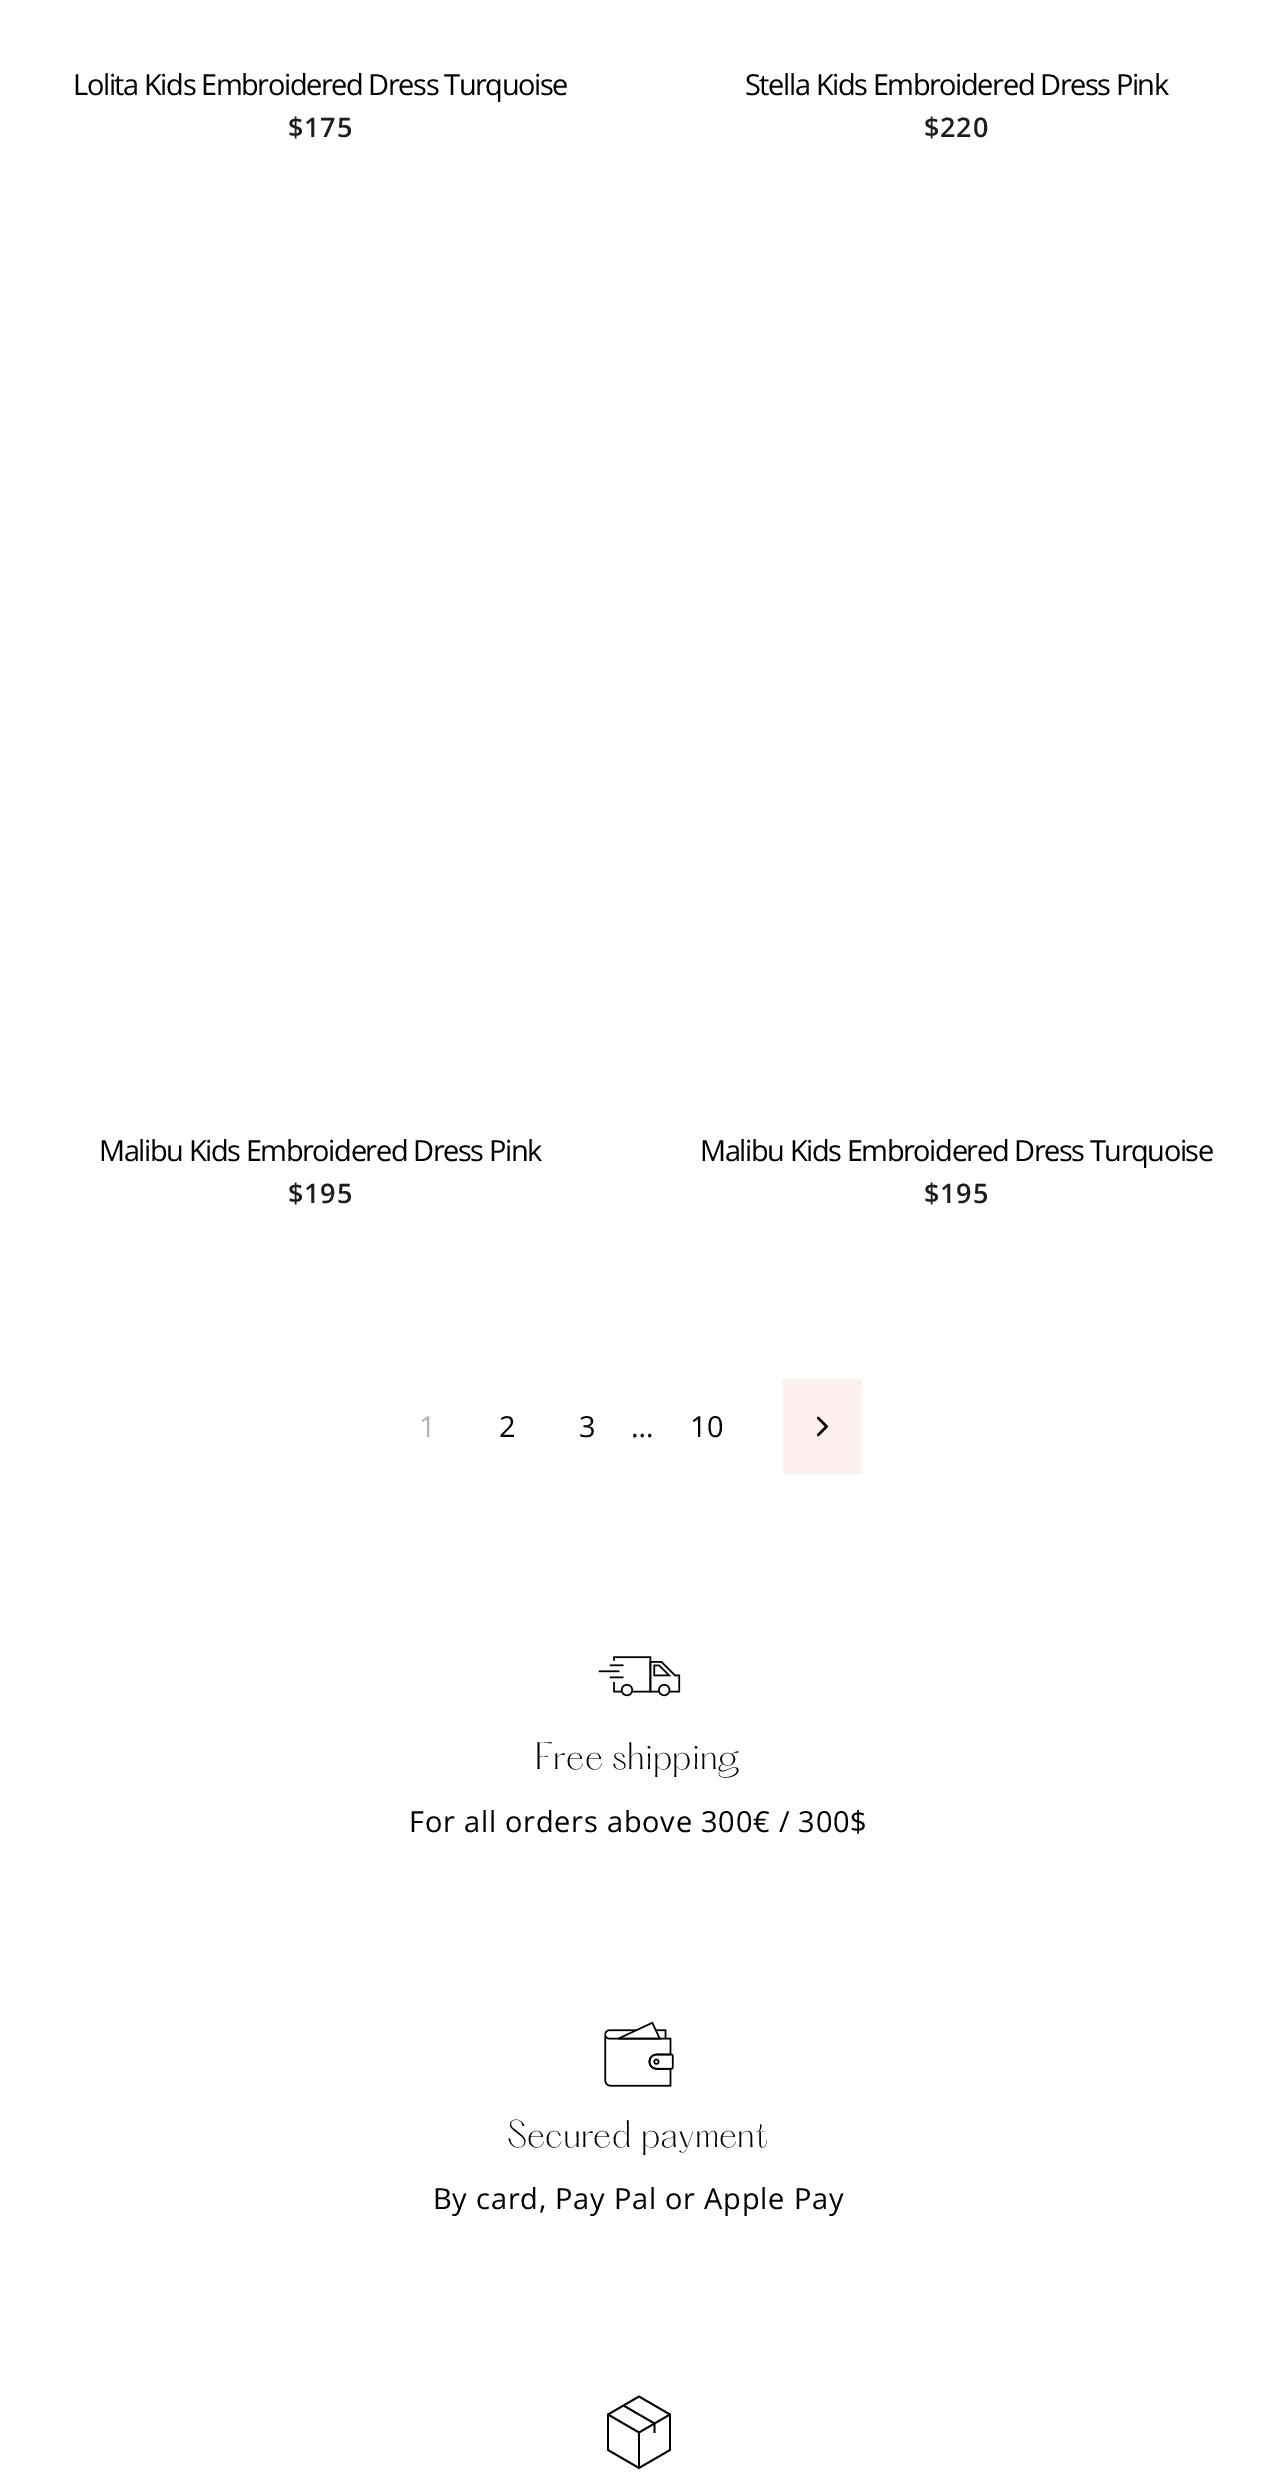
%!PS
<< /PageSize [1274 2485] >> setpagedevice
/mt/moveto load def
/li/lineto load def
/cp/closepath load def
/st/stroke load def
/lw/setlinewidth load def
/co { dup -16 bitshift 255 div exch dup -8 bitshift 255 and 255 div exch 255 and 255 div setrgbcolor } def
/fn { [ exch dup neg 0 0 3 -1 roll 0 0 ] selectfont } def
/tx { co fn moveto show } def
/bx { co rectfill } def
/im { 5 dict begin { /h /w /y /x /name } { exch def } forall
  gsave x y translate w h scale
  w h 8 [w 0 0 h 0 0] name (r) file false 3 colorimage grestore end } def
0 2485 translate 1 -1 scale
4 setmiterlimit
0 0 1274 2485 16#FFFFFF bx
783 1379 79 95 16#FFF0EF bx
(media/1.raw) 817 1416 11 21 im
(media/2.raw) 598 1656 83 41 im
(media/3.raw) 604 2021 70 66 im
16#000000 co
1.8 lw
639 2468 mt 608 2450 li 608 2414.5 li 639 2396.5 li 670 2414.5 li 670 2450 li cp st
654.5 2433 mt 654.5 2423.5 li 623.5 2405.5 li 608 2414.5 mt 639 2432.5 li st
639 2468 mt 639 2432.5 li 670 2414.5 li st
/OpenSans-Regular 29 fn
73 95 mt -1.45 0 (Lolita Kids Embroidered Dress Turquoise) ashow
/OpenSans-SemiBold 27 fn
16#1C1D1D co
288 137 mt .75 0 ($175) ashow
/OpenSans-Regular 29 fn
16#000000 co
745 95 mt -1.45 0 (Stella Kids Embroidered Dress Pink) ashow
/OpenSans-SemiBold 27 fn
16#1C1D1D co
924 137 mt .75 0 ($220) ashow
/OpenSans-Regular 29 fn
16#000000 co
99 1161 mt -1.45 0 (Malibu Kids Embroidered Dress Pink) ashow
/OpenSans-SemiBold 27 fn
16#1C1D1D co
288 1203 mt .75 0 ($195) ashow
/OpenSans-Regular 29 fn
16#000000 co
700 1161 mt -1.45 0 (Malibu Kids Embroidered Dress Turquoise) ashow
/OpenSans-SemiBold 27 fn
16#1C1D1D co
924 1203 mt .75 0 ($195) ashow
/OpenSans-Regular 29 fn
16#B3B3B3 co
419 1437 mt .75 0 (1) ashow
16#000000 co
499 1437 mt .75 0 (2) ashow
579 1437 mt .75 0 (3) ashow
631 1437 mt .75 0 (…) ashow
690 1437 mt .75 0 (10) ashow
(Free shipping) 535 1769 /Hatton-Light 33.5 16#000000 tx
/OpenSans-Regular 29 fn
409 1832 mt .75 0 (For all orders above 300€ / 300$) ashow
(Secured payment) 507 2147 /Hatton-Light 33.5 16#000000 tx
/OpenSans-Regular 29 fn
433 2209 mt .75 0 (By card, Pay Pal or Apple Pay) ashow
showpage
